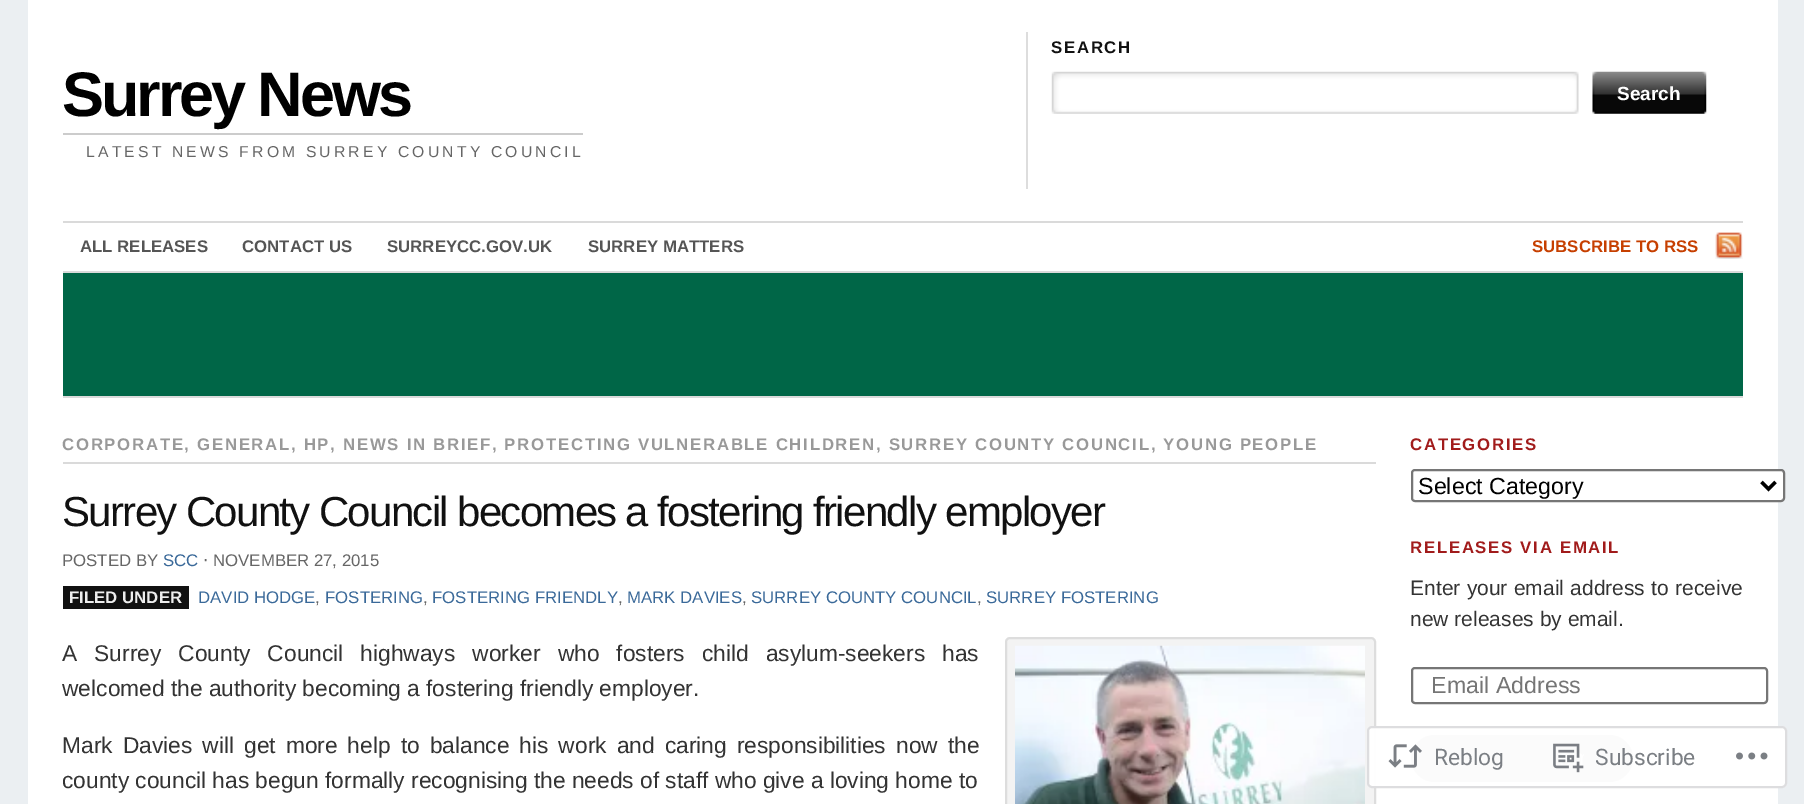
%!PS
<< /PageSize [1804 804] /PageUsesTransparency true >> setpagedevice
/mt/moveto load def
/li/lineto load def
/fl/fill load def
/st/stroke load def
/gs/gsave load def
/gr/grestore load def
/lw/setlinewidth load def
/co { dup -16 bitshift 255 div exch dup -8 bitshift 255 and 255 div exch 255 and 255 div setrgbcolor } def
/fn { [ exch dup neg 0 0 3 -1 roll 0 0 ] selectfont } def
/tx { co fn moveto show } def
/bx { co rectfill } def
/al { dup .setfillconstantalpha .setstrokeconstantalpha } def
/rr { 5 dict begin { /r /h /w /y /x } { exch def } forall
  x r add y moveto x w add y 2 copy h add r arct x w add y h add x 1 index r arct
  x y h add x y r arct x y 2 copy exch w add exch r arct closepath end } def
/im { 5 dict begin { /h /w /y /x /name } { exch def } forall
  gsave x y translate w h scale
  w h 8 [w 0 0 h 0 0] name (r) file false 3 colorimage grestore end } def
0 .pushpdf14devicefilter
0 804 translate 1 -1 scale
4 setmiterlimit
0 0 1804 804 16#EBEFF2 bx
28 0 1750 804 16#FFFFFF bx
63 133 520 2 16#CCCCCC bx
1026 32 2 157 16#DDDDDD bx
(media/1.raw) 1051 71 528 43 im
(media/2.raw) 1592 71 115 43 im
63 221 1680 2 16#DADADA bx
(media/3.raw) 1715 232 28 27 im
63 273 1680 123 16#006647 bx
63 271 1680 2 16#DADADA bx
63 396 1680 2 16#DADADA bx
63 462 1313 2 16#DADADA bx
63 586 126 23 16#111111 bx
16#F3F3F3 co
1006 638 369 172 4 rr gs fl gr
16#DDDDDD co
2 lw
st
(media/4.raw) 1015 645 350 159 im
16#FFFFFF co
1412 470 372 31 3 rr gs fl gr
16#767676 co
st
16#000000 co
3.5 lw
1761.5 482 mt 1768.5 489 li 1775.5 482 li st
16#767676 co
2 lw
1412 668 355 35 3 rr st
16#32373C co
1411 735 222 47 23.5 rr fl
0.98 al
16#FFFFFF co
1367 726 420 62 5 rr fl
16#DCDCDE co
1368 727 418 60 4 rr st
1 al
(media/5.raw) 1388 744 34 24 im
(media/6.raw) 1553 743 31 30 im
(media/7.raw) 1736 752 32 8 im
/LiberationSans-Bold 63 fn
16#000000 co
62 116 mt -3.1 0 (Surrey News) ashow
/LiberationSans-Regular 15.75 fn
16#666666 co
86 157 mt 3.15 0 (LATEST NEWS FROM SURREY COUNTY COUNCIL) ashow
/LiberationSans-Bold 16.8 fn
16#111111 co
1051 53 mt 1.68 0 (SEARCH) ashow
(Search) 1617 100 /LiberationSans-Bold 19 16#FFFFFF tx
(ALL RELEASES) 80 252 /LiberationSans-Bold 16.8 16#555555 tx
(CONTACT US) 242 252 /LiberationSans-Bold 16.8 16#555555 tx
(SURREYCC.GOV.UK) 387 252 /LiberationSans-Bold 16.8 16#555555 tx
(SURREY MATTERS) 588 252 /LiberationSans-Bold 16.8 16#555555 tx
(SUBSCRIBE TO RSS) 1532 252 /LiberationSans-Bold 16.8 16#C63F00 tx
16#999999 co
62 450 mt 1.68 0 (CORPORATE, GENERAL, HP, NEWS IN BRIEF, PROTECTING VULNERABLE CHILDREN, SURREY COUNTY COUNCIL, YOUNG PEOPLE) ashow
/LiberationSans-Regular 42 fn
16#111111 co
62 526 mt -1.68 0 (Surrey County Council becomes a fostering friendly employer) ashow
(POSTED BY) 62 566 /LiberationSans-Regular 16.8 16#666666 tx
(SCC) 163 566 /LiberationSans-Regular 16.8 16#3A6999 tx
(⋅) 203 566 /DejaVuSans-Regular 16.8 16#666666 tx
(NOVEMBER 27, 2015) 213 566 /LiberationSans-Regular 16.8 16#666666 tx
(FILED UNDER) 69 603 /LiberationSans-Bold 16.8 16#EEEEEE tx
(DAVID HODGE) 198 603 /LiberationSans-Regular 16.8 16#3A6999 tx
(,) 315 603 /LiberationSans-Regular 16.8 16#666666 tx
(FOSTERING) 325 603 /LiberationSans-Regular 16.8 16#3A6999 tx
(,) 423 603 /LiberationSans-Regular 16.8 16#666666 tx
(FOSTERING FRIENDLY) 432 603 /LiberationSans-Regular 16.8 16#3A6999 tx
(,) 618 603 /LiberationSans-Regular 16.8 16#666666 tx
(MARK DAVIES) 627 603 /LiberationSans-Regular 16.8 16#3A6999 tx
(,) 742 603 /LiberationSans-Regular 16.8 16#666666 tx
(SURREY COUNTY COUNCIL) 751 603 /LiberationSans-Regular 16.8 16#3A6999 tx
(,) 977 603 /LiberationSans-Regular 16.8 16#666666 tx
(SURREY FOSTERING) 986 603 /LiberationSans-Regular 16.8 16#3A6999 tx
/LiberationSans-Regular 22.75 fn
16#333333 co
62 661 mt 10.75 0 32 (A Surrey County Council highways worker who fosters child asylum-seekers has) widthshow
(welcomed the authority becoming a fostering friendly employer.) 62 696 /LiberationSans-Regular 22.75 16#333333 tx
62 753 mt 3.75 0 32 (Mark Davies will get more help to balance his work and caring responsibilities now the) widthshow
(county council has begun formally recognising the needs of staff who give a loving home to) 62 788 /LiberationSans-Regular 22.75 16#333333 tx
/LiberationSans-Bold 16.8 fn
16#A11B1B co
1410 450 mt 1.68 0 (CATEGORIES) ashow
(Select Category) 1418 494 /LiberationSans-Regular 23.25 16#000000 tx
/LiberationSans-Bold 16.8 fn
16#A11B1B co
1410 553 mt 1.68 0 (RELEASES VIA EMAIL) ashow
/LiberationSans-Regular 21 fn
16#333333 co
1410 595 mt .5 0 32 (Enter your email address to receive) widthshow
(new releases by email.) 1410 626 /LiberationSans-Regular 21 16#333333 tx
(Email Address) 1431 693 /LiberationSans-Regular 23.25 16#757575 tx
(Reblog) 1434 765 /Roboto-Regular 22.75 16#7B7F84 tx
(Subscribe) 1595 765 /Roboto-Regular 22.75 16#7B7F84 tx
.poppdf14devicefilter showpage
